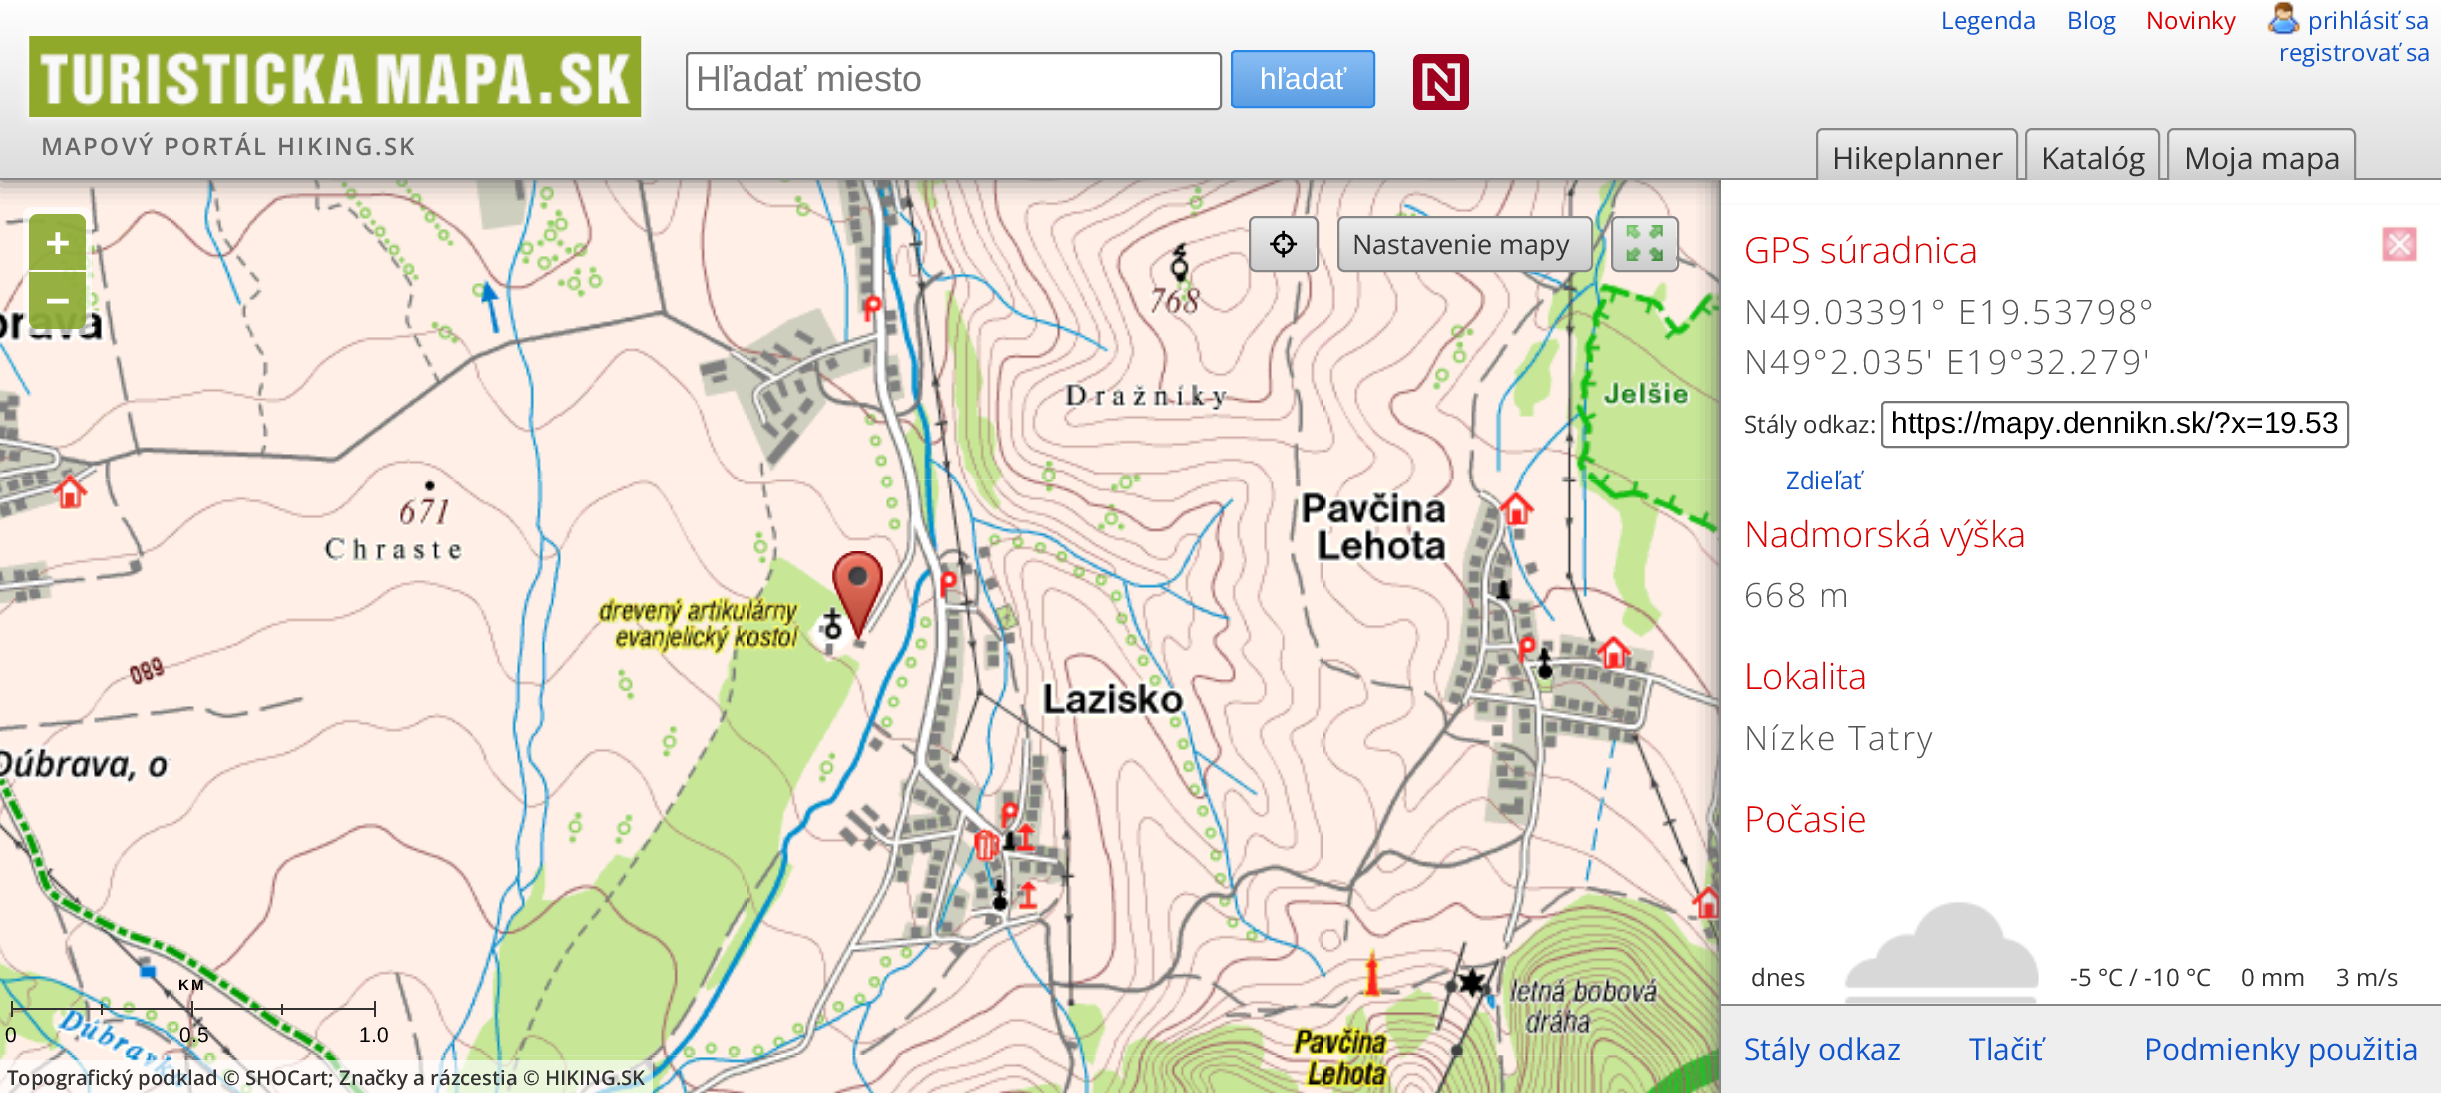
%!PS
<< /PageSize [2441 1093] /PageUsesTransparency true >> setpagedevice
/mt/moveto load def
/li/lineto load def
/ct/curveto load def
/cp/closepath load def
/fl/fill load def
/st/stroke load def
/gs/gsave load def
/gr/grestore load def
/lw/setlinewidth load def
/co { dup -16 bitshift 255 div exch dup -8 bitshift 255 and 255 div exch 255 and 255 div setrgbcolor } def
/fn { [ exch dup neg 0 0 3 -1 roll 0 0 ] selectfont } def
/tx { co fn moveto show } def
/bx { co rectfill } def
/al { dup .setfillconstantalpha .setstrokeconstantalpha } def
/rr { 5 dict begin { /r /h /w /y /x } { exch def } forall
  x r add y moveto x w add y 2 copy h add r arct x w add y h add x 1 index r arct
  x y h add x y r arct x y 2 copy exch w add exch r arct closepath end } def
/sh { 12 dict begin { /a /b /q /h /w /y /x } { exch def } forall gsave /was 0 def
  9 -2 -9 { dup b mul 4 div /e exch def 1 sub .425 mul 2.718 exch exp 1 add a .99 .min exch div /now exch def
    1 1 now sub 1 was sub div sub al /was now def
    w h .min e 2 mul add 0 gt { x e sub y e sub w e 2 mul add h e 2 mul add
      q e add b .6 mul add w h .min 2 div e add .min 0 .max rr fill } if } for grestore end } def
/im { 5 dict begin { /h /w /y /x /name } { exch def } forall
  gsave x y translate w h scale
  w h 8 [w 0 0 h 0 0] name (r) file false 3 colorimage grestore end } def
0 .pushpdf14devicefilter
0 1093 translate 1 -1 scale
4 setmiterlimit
0 0 2441 1093 16#FFFFFF bx
(media/8.raw) 0 479 171 577 im
(media/4.raw) 0 180 171 300 im
(media/9.raw) 171 479 576 577 im
(media/5.raw) 171 180 576 300 im
(media/10.raw) 747 479 576 577 im
(media/6.raw) 747 180 576 300 im
(media/11.raw) 1323 479 396 577 im
(media/7.raw) 1323 180 396 300 im
0.7 al
23 207 69 128 9 rr fl
1 al
(media/15.raw) 1323 1055 396 38 im
gs
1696 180 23 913 rectclip
16#666666 co
1719 180 722 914 0 11 1 sh
gr
1719 180 2 913 16#888888 bx
16#666666 co
0 0 2441 180 0 11 1 sh
gs 0 0 mt 2441 0 li 2441 178 li 0 178 li cp clip newpath
<< /ShadingType 2 /ColorSpace /DeviceRGB /Coords [0 0 0 178] /Extend [true true] /Function << /FunctionType 2 /Domain [0 1] /C0 [1 1 1] /C1 [.867 .867 .867] /N 1 >> >> shfill gr
0 178 2441 2 16#888888 bx
(media/1.raw) 2267 1 34 34 im
16#FFFFFF co
687 53 534 56 4 rr gs fl gr
16#767676 co
2 lw
st
gs
1231 50 144 58 5 rr clip newpath
gs 1231 52 mt 1375 52 li 1375 106 li 1231 106 li cp clip newpath
<< /ShadingType 2 /ColorSpace /DeviceRGB /Coords [1233 52 1233 106] /Extend [true true] /Function << /FunctionType 2 /Domain [0 1] /C0 [.541 .745 .957] /C1 [.357 .62 .89] /N 1 >> >> shfill gr
gr
16#2A89E8 co
1232 51 142 56 4 rr st
(media/2.raw) 1413 54 56 56 im
16#FFFFFF co
29 36 612 81 0 5.5 1 sh
(media/3.raw) 29 36 613 81 im
gs 1818 131 198 54 5 rr clip newpath
<< /ShadingType 2 /ColorSpace /DeviceRGB /Coords [1818 131 1818 185] /Extend [true true] /Function << /FunctionType 2 /Domain [0 1] /C0 [.933 .933 .933] /C1 [.8 .8 .8] /N 1 >> >> shfill gr
16#888888 co
1817 129 200 57 6 rr st
gs 2027 131 131 54 5 rr clip newpath
<< /ShadingType 2 /ColorSpace /DeviceRGB /Coords [2027 131 2027 185] /Extend [true true] /Function << /FunctionType 2 /Domain [0 1] /C0 [.933 .933 .933] /C1 [.8 .8 .8] /N 1 >> >> shfill gr
2026 129 133 57 6 rr st
gs 2169 131 185 54 5 rr clip newpath
<< /ShadingType 2 /ColorSpace /DeviceRGB /Coords [2169 131 2169 185] /Extend [true true] /Function << /FunctionType 2 /Domain [0 1] /C0 [.933 .933 .933] /C1 [.8 .8 .8] /N 1 >> >> shfill gr
2168 129 187 57 6 rr st
1721 180 720 23 16#FFFFFF bx
(media/12.raw) 0 1055 171 38 im
(media/13.raw) 171 1055 576 38 im
(media/14.raw) 747 1055 576 38 im
(media/16.raw) 832 551 51 89 im
(media/17.raw) 0 744 171 213 im
(media/18.raw) 171 944 165 112 im
(media/19.raw) 321 1055 47 38 im
(media/20.raw) 832 551 51 89 im
(media/21.raw) 832 551 51 89 im
0.8 al
16#7C9E15 co
38 214 mt 77 214 li 82 214 86 218 86 223 ct 86 270 li 29 270 li 29 223 li 29 218 33 214 38 214 ct cp fl
29 272 mt 86 272 li 86 320 li 86 325 82 329 77 329 ct 38 329 li 33 329 29 325 29 320 ct cp fl
1 al
11 1001 2 16 16#333333 bx
101 1004 2 11 16#333333 bx
191 1001 2 16 16#333333 bx
194 1008 180 2 16#333333 bx
281 1004 2 11 16#333333 bx
374 1001 2 16 16#333333 bx
11 1008 90 2 16#333333 bx
101 1008 90 2 16#333333 bx
0.65 al
0 1060 653 33 16#FFFFFF bx
1 al
gs 1251 218 65 52 5 rr clip newpath
<< /ShadingType 2 /ColorSpace /DeviceRGB /Coords [1251 218 1251 270] /Extend [true true] /Function << /FunctionType 2 /Domain [0 1] /C0 [.933 .933 .933] /C1 [.8 .8 .8] /N 1 >> >> shfill gr
(media/22.raw) 1270 230 28 28 im
16#888888 co
1250 217 68 54 6 rr st
gs 1339 218 252 52 5 rr clip newpath
<< /ShadingType 2 /ColorSpace /DeviceRGB /Coords [1339 218 1339 270] /Extend [true true] /Function << /FunctionType 2 /Domain [0 1] /C0 [.933 .933 .933] /C1 [.8 .8 .8] /N 1 >> >> shfill gr
1338 217 254 54 6 rr st
gs 1613 218 63 52 5 rr clip newpath
<< /ShadingType 2 /ColorSpace /DeviceRGB /Coords [1613 218 1613 270] /Extend [true true] /Function << /FunctionType 2 /Domain [0 1] /C0 [.933 .933 .933] /C1 [.8 .8 .8] /N 1 >> >> shfill gr
(media/23.raw) 1626 225 37 36 im
1612 217 66 54 6 rr st
16#767676 co
1882 402 466 45 4 rr st
(media/24.raw) 1844 901 195 103 im
(media/25.raw) 2380 225 39 38 im
1721 1006 720 87 16#EEEEEE bx
1721 1004 720 2 16#888888 bx
(Legenda) 1941 29 /OpenSans-Regular 24 16#1155CC tx
(Blog) 2067 29 /OpenSans-Regular 24 16#1155CC tx
(Novinky) 2146 29 /OpenSans-Regular 24 16#DD0000 tx
(prihlásiť sa) 2308 29 /OpenSans-Regular 24 16#1155CC tx
(registrovať sa) 2279 61 /OpenSans-Regular 24 16#1155CC tx
(Hľadať miesto) 696 91 /LiberationSans-Regular 36 16#757575 tx
(hľadať) 1260 89 /LiberationSans-Regular 30 16#FFFFFF tx
/OpenSans-SemiBold 24 fn
16#666666 co
41 155 mt 2.25 0 (MAPOVÝ PORTÁL HIKING.SK) ashow
(Hikeplanner) 1832 169 /OpenSans-Regular 30 16#333333 tx
(Katalóg) 2041 169 /OpenSans-Regular 30 16#333333 tx
(Moja mapa) 2184 169 /OpenSans-Regular 30 16#333333 tx
(+) 45 259 /OpenSans-Bold 45 16#FFFFFF tx
(−) 45 317 /OpenSans-Bold 45 16#FFFFFF tx
/LiberationSans-Bold 15 fn
16#000000 co
178 990 mt 2 0 (KM) ashow
(0) 5 1042 /LiberationSans-Regular 21 16#000000 tx
(0.5) 179 1042 /LiberationSans-Regular 21 16#000000 tx
(1.0) 359 1042 /LiberationSans-Regular 21 16#000000 tx
(Topografický podklad © SHOCart; Značky a rázcestia © HIKING.SK) 7 1085 /OpenSans-SemiBold 20.25 16#333333 tx
(Nastavenie mapy) 1352 254 /OpenSans-Regular 27 16#333333 tx
(GPS súradnica) 1744 263 /OpenSans-Light 36 16#DD0000 tx
/OpenSans-Light 33.6 fn
16#555555 co
1744 324 mt 2.25 0 (N49.03391° E19.53798°) ashow
1744 374 mt 2.25 0 (N49°2.035' E19°32.279') ashow
(Stály odkaz:) 1744 433 /OpenSans-Regular 24 16#333333 tx
(https://mapy.dennikn.sk/?x=19.53) 1891 433 /LiberationSans-Regular 30 16#000000 tx
(Zdieľať) 1786 489 /OpenSans-Regular 24 16#1155CC tx
(Nadmorská výška) 1744 547 /OpenSans-Light 36 16#DD0000 tx
/OpenSans-Light 33.6 fn
16#555555 co
1744 607 mt 2.25 0 (668 m) ashow
(Lokalita) 1744 689 /OpenSans-Light 36 16#DD0000 tx
/OpenSans-Light 33.6 fn
16#555555 co
1744 750 mt 2.25 0 (Nízke Tatry) ashow
(Počasie) 1744 832 /OpenSans-Light 36 16#DD0000 tx
(dnes) 1751 986 /OpenSans-Regular 24 16#333333 tx
(-5 °C / -10 °C) 2070 986 /OpenSans-Regular 24 16#333333 tx
(0 mm) 2241 986 /OpenSans-Regular 24 16#333333 tx
(3 m/s) 2336 986 /OpenSans-Regular 24 16#333333 tx
(Stály odkaz) 1744 1060 /OpenSans-Regular 30 16#1155CC tx
(Tlačiť) 1969 1060 /OpenSans-Regular 30 16#1155CC tx
(Podmienky použitia) 2144 1060 /OpenSans-Regular 30 16#1155CC tx
.poppdf14devicefilter showpage
